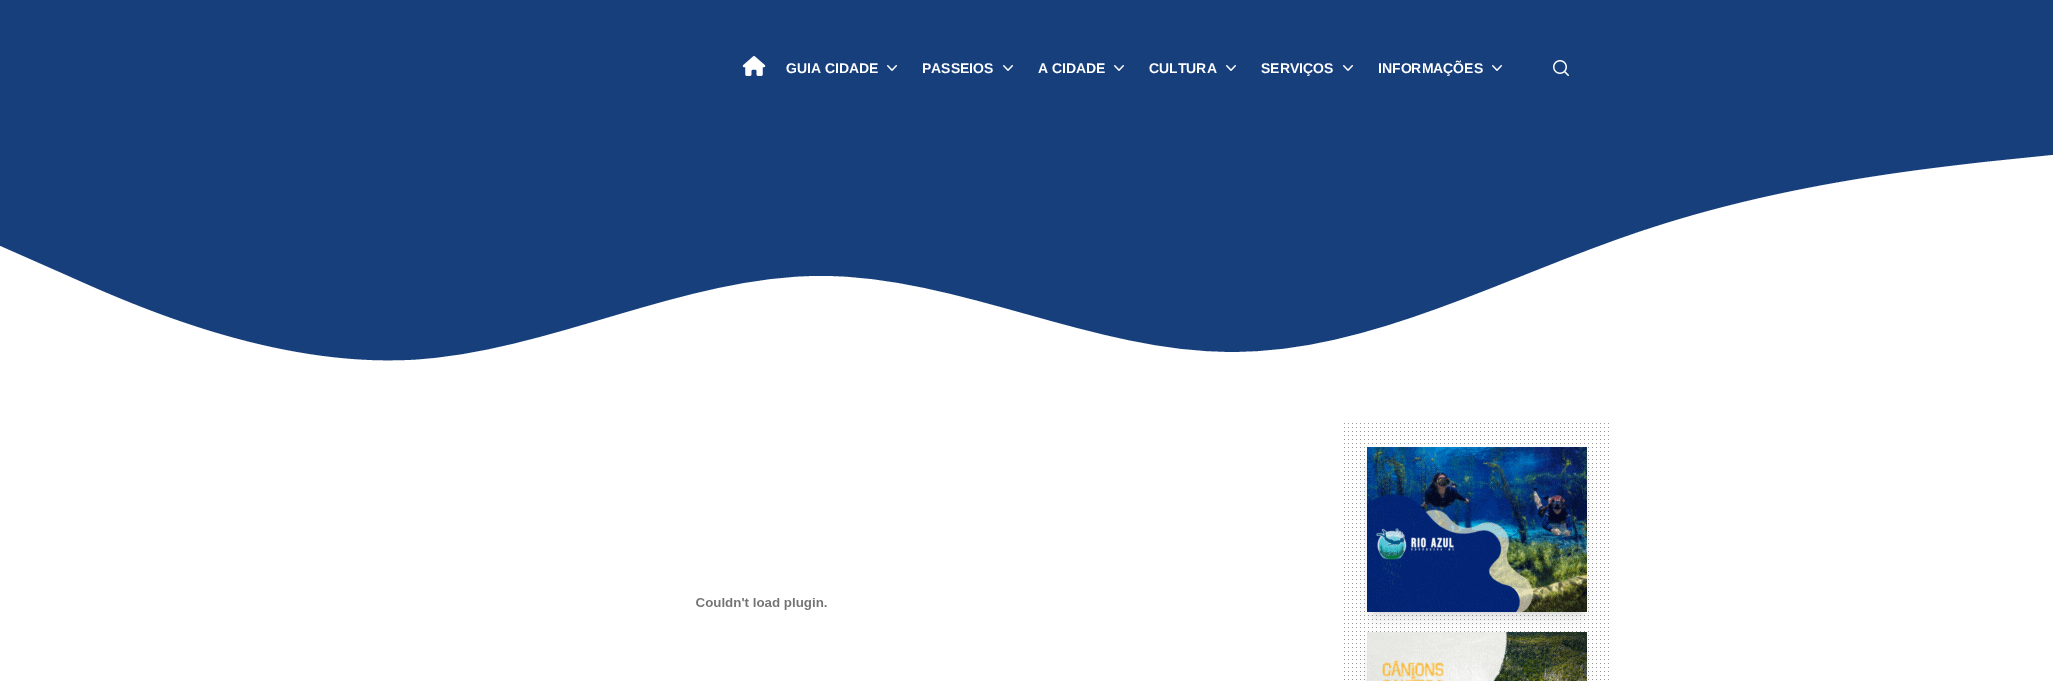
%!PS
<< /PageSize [2053 681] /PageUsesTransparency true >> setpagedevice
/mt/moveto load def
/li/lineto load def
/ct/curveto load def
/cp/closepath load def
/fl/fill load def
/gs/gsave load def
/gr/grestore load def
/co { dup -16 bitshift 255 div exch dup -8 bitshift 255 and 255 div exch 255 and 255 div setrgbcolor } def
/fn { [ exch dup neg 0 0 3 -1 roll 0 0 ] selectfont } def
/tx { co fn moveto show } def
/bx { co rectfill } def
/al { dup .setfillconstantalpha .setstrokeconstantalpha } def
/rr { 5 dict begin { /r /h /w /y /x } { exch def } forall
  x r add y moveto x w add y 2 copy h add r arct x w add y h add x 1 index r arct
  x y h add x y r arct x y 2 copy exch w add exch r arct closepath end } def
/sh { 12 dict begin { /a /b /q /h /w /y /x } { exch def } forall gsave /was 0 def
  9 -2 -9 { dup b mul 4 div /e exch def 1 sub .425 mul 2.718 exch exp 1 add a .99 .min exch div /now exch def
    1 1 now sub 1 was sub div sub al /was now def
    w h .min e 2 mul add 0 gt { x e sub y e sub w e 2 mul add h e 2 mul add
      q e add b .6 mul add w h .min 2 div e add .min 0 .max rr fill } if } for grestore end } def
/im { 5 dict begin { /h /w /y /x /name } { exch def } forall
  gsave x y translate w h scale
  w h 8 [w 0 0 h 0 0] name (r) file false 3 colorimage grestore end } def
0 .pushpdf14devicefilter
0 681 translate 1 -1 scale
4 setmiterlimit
0 0 2053 681 16#FFFFFF bx
0 0 2053 361 16#163F7C bx
gs
0 0 2053 400 rectclip
16#FFFFFF co
0 246 mt 68 276 li 137 307 274 367 411 360 ct 547 353 684 276 821 276 ct 958 276 1095 353 1232 352 ct 1369 353 1506 276 1642 231 ct 1779 185 1916 170 1985 162 ct 2053 155 li 2053 428 li 0 428 li cp fl
gr
(media/1.raw) 742 56 24 20 im
(media/2.raw) 887 65 10 6 im
(media/2.raw) 1003 65 10 6 im
(media/2.raw) 1114 65 10 6 im
(media/2.raw) 1226 65 10 6 im
(media/2.raw) 1343 65 10 6 im
(media/2.raw) 1492 65 10 6 im
(media/3.raw) 1553 60 16 16 im
(media/4.raw) 696 598 131 12 im
(media/5.raw) 1344 423 265 257 im
16#000000 co
1371 455 212 157 4 3 .1 sh
1370 460 214 159 5 7.5 .1 sh
(media/6.raw) 1367 447 220 165 im
1370 645 214 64 5 7.5 .1 sh
(media/7.raw) 1367 632 220 49 im
(GUIA CIDADE) 786 73 /LiberationSans-Bold 14 16#FFFFFF tx
(PASSEIOS) 922 73 /LiberationSans-Bold 14 16#FFFFFF tx
(A CIDADE) 1038 73 /LiberationSans-Bold 14 16#FFFFFF tx
(CULTURA) 1149 73 /LiberationSans-Bold 14 16#FFFFFF tx
(SERVIÇOS) 1261 73 /LiberationSans-Bold 14 16#FFFFFF tx
(INFORMAÇÕES) 1378 73 /LiberationSans-Bold 14 16#FFFFFF tx
.poppdf14devicefilter showpage
